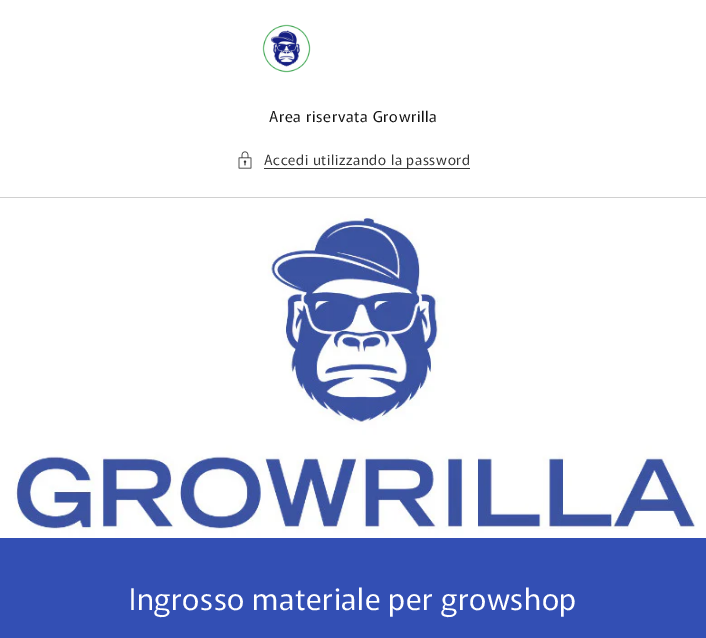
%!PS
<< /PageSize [706 638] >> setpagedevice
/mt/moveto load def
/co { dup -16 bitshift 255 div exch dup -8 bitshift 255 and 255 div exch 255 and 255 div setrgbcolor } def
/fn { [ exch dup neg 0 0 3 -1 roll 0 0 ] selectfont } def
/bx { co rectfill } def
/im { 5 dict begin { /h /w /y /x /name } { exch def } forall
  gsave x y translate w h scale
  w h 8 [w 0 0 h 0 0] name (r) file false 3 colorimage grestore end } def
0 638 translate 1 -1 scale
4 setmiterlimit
0 0 706 638 16#FFFFFF bx
(media/1.raw) 262 24 49 49 im
(media/2.raw) 238 151 14 18 im
264 168 206 1 16#363636 bx
0 197 706 1 16#D0D0D0 bx
(media/3.raw) 0 198 706 340 im
0 538 706 100 16#334FB4 bx
/Murecho-Regular 15 fn
16#121212 co
269 122 mt .7 0 (Area riservata Growrilla) ashow
/Murecho-Regular 14 fn
16#353535 co
264 165 mt .7 0 (Accedi utilizzando la password) ashow
/Murecho-Regular 30 fn
16#FFFFFF co
129 610 mt .6 0 (Ingrosso materiale per growshop) ashow
showpage
